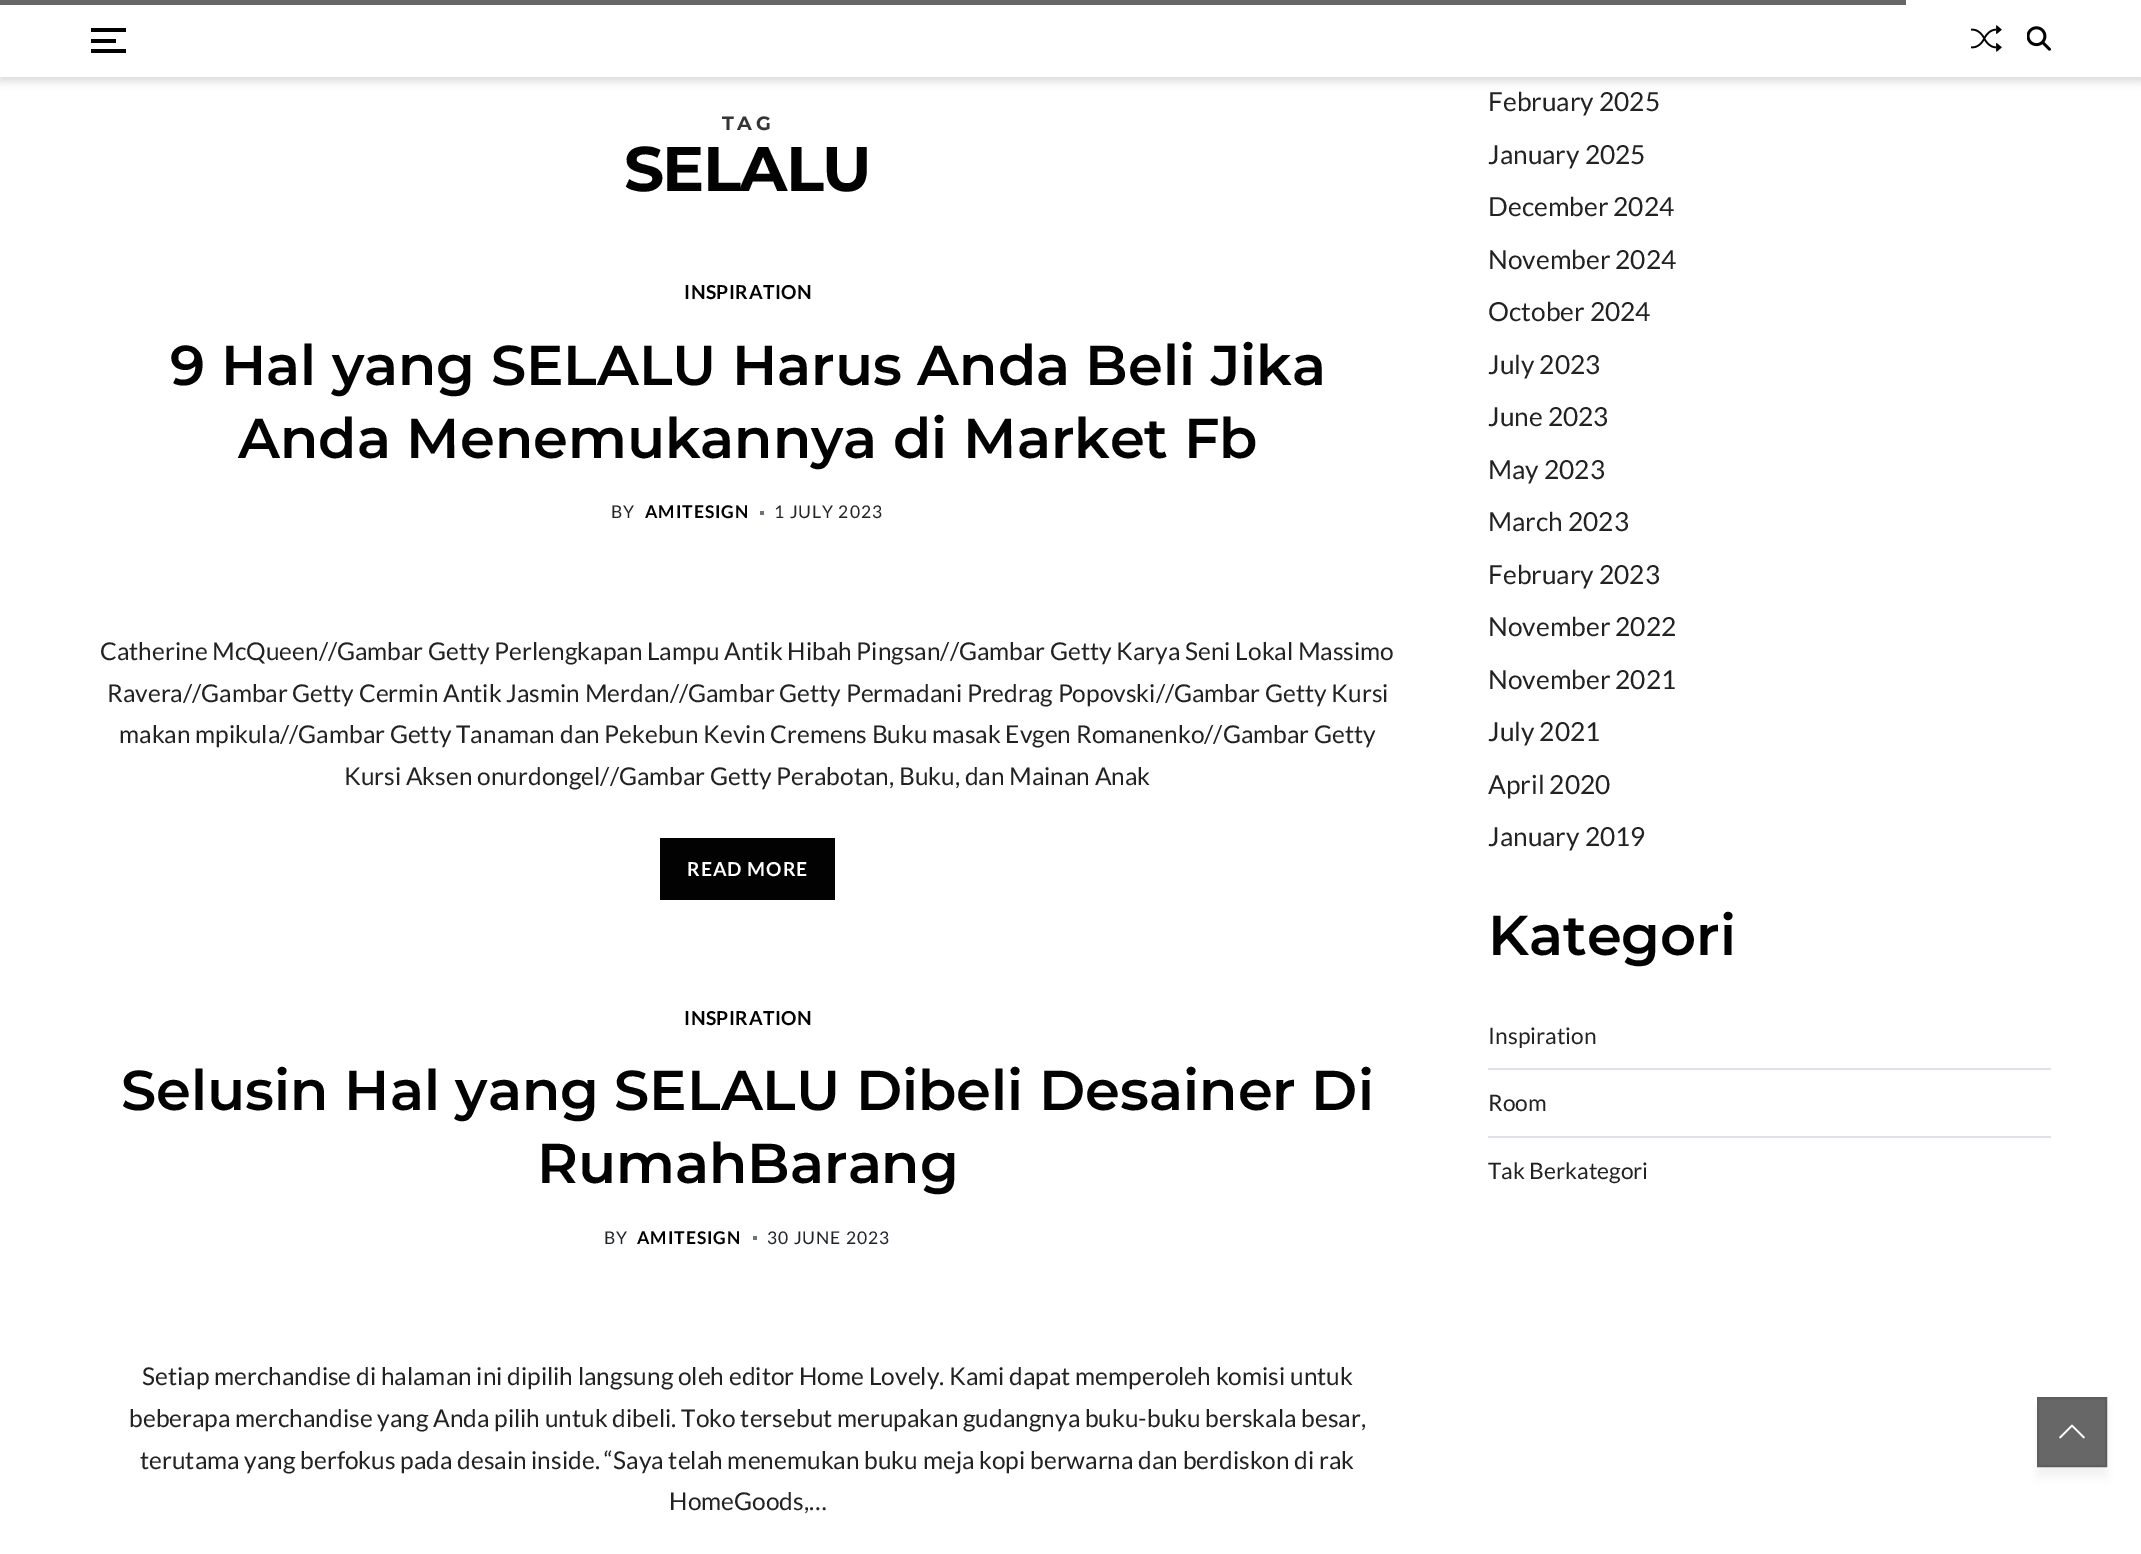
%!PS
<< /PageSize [2141 1554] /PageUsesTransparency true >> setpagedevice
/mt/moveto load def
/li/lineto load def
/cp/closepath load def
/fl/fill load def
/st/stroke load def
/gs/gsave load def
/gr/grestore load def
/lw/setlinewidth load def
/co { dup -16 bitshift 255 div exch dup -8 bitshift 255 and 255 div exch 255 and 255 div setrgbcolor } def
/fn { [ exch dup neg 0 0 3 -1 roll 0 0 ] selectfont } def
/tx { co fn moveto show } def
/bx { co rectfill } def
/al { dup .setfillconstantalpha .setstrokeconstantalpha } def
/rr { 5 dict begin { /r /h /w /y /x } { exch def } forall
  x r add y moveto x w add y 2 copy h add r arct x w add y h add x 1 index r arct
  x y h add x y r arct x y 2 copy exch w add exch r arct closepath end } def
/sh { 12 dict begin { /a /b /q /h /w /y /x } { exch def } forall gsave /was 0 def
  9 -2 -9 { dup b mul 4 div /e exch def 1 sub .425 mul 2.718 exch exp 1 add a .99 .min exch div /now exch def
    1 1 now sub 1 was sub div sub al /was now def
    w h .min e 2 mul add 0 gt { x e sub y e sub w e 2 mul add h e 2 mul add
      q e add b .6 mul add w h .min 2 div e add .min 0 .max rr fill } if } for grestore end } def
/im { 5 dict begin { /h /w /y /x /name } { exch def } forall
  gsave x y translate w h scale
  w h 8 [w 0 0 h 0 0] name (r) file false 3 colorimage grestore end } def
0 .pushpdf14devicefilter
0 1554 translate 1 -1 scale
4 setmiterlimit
0 0 2141 1554 16#FFFFFF bx
16#000000 co
0 4 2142 77 0 4.5 .15 sh
0 0 2141 77 16#FFFFFF bx
91 28 35 4 16#010101 bx
91 39 25 4 16#010101 bx
91 49 35 4 16#010101 bx
(media/1.raw) 1971 25 31 27 im
(media/2.raw) 2027 26 24 25 im
0 0 1906 5 16#676767 bx
760 511 4 4 16#6C757D bx
660 838 175 62 16#020202 bx
753 1236 4 4 16#6C757D bx
1488 1068 563 2 16#DEE2E6 bx
1488 1136 563 2 16#DEE2E6 bx
16#000000 co
2037 1407 70 70 0 5 .05 sh
16#676767 co
2038 1398 mt 2106 1398 li 2106 1466 li 2038 1466 li cp gs fl gr
16#5D5D5D co
2 lw
st
(media/3.raw) 2059 1424 26 15 im
/Montserrat-Bold 19.25 fn
16#353535 co
722 130 mt 3.5 0 (TAG) ashow
/Montserrat-Bold 63 fn
16#020202 co
624 191 mt -1.75 0 (SELALU) ashow
/Lato-Bold 19.25 fn
684 299 mt .5 0 (INSPIRATION) ashow
(9 Hal yang SELALU Harus Anda Beli Jika) 170 385 /Montserrat-SemiBold 56 16#020202 tx
(Anda Menemukannya di Market Fb) 238 458 /Montserrat-SemiBold 56 16#020202 tx
/Lato-Regular 17.5 fn
16#212529 co
611 518 mt 1 0 (BY) ashow
/Lato-Bold 17.5 fn
16#020202 co
645 518 mt 1 0 (AMITESIGN) ashow
/Lato-Regular 17.5 fn
16#212529 co
774 518 mt 1 0 (1 JULY 2023) ashow
(Catherine McQueen//Gambar Getty Perlengkapan Lampu Antik Hibah Pingsan//Gambar Getty Karya Seni Lokal Massimo) 100 660 /Lato-Regular 24.5 16#232222 tx
(Ravera//Gambar Getty Cermin Antik Jasmin Merdan//Gambar Getty Permadani Predrag Popovski//Gambar Getty Kursi) 107 702 /Lato-Regular 24.5 16#232222 tx
(makan mpikula//Gambar Getty Tanaman dan Pekebun Kevin Cremens Buku masak Evgen Romanenko//Gambar Getty) 119 743 /Lato-Regular 24.5 16#232222 tx
(Kursi Aksen onurdongel//Gambar Getty Perabotan, Buku, dan Mainan Anak) 344 785 /Lato-Regular 24.5 16#232222 tx
/Lato-Bold 19.25 fn
16#FFFFFF co
687 876 mt 1 0 (READ MORE) ashow
16#020202 co
684 1025 mt .5 0 (INSPIRATION) ashow
(Selusin Hal yang SELALU Dibeli Desainer Di) 121 1110 /Montserrat-SemiBold 56 16#020202 tx
(RumahBarang) 537 1183 /Montserrat-SemiBold 56 16#020202 tx
/Lato-Regular 17.5 fn
16#212529 co
604 1244 mt 1 0 (BY) ashow
/Lato-Bold 17.5 fn
16#020202 co
637 1244 mt 1 0 (AMITESIGN) ashow
/Lato-Regular 17.5 fn
16#212529 co
767 1244 mt 1 0 (30 JUNE 2023) ashow
(Setiap merchandise di halaman ini dipilih langsung oleh editor Home Lovely. Kami dapat memperoleh komisi untuk) 142 1385 /Lato-Regular 24.5 16#232222 tx
(beberapa merchandise yang Anda pilih untuk dibeli. Toko tersebut merupakan gudangnya buku-buku berskala besar,) 129 1427 /Lato-Regular 24.5 16#232222 tx
(terutama yang berfokus pada desain inside. “Saya telah menemukan buku meja kopi berwarna dan berdiskon di rak) 140 1469 /Lato-Regular 24.5 16#232222 tx
(HomeGoods,…) 669 1510 /Lato-Regular 24.5 16#232222 tx
(February 2025) 1488 111 /Lato-Regular 26.25 16#232222 tx
(January 2025) 1488 164 /Lato-Regular 26.25 16#232222 tx
(December 2024) 1488 216 /Lato-Regular 26.25 16#232222 tx
(November 2024) 1488 269 /Lato-Regular 26.25 16#232222 tx
(October 2024) 1488 321 /Lato-Regular 26.25 16#232222 tx
(July 2023) 1488 374 /Lato-Regular 26.25 16#232222 tx
(June 2023) 1488 426 /Lato-Regular 26.25 16#232222 tx
(May 2023) 1488 479 /Lato-Regular 26.25 16#232222 tx
(March 2023) 1488 531 /Lato-Regular 26.25 16#232222 tx
(February 2023) 1488 584 /Lato-Regular 26.25 16#232222 tx
(November 2022) 1488 636 /Lato-Regular 26.25 16#232222 tx
(November 2021) 1488 689 /Lato-Regular 26.25 16#232222 tx
(July 2021) 1488 741 /Lato-Regular 26.25 16#232222 tx
(April 2020) 1488 794 /Lato-Regular 26.25 16#232222 tx
(January 2019) 1488 846 /Lato-Regular 26.25 16#232222 tx
(Kategori) 1488 955 /Montserrat-SemiBold 56 16#020202 tx
(Inspiration) 1488 1044 /Lato-Regular 22.75 16#232222 tx
(Room) 1488 1111 /Lato-Regular 22.75 16#232222 tx
(Tak Berkategori) 1488 1179 /Lato-Regular 22.75 16#232222 tx
.poppdf14devicefilter showpage
